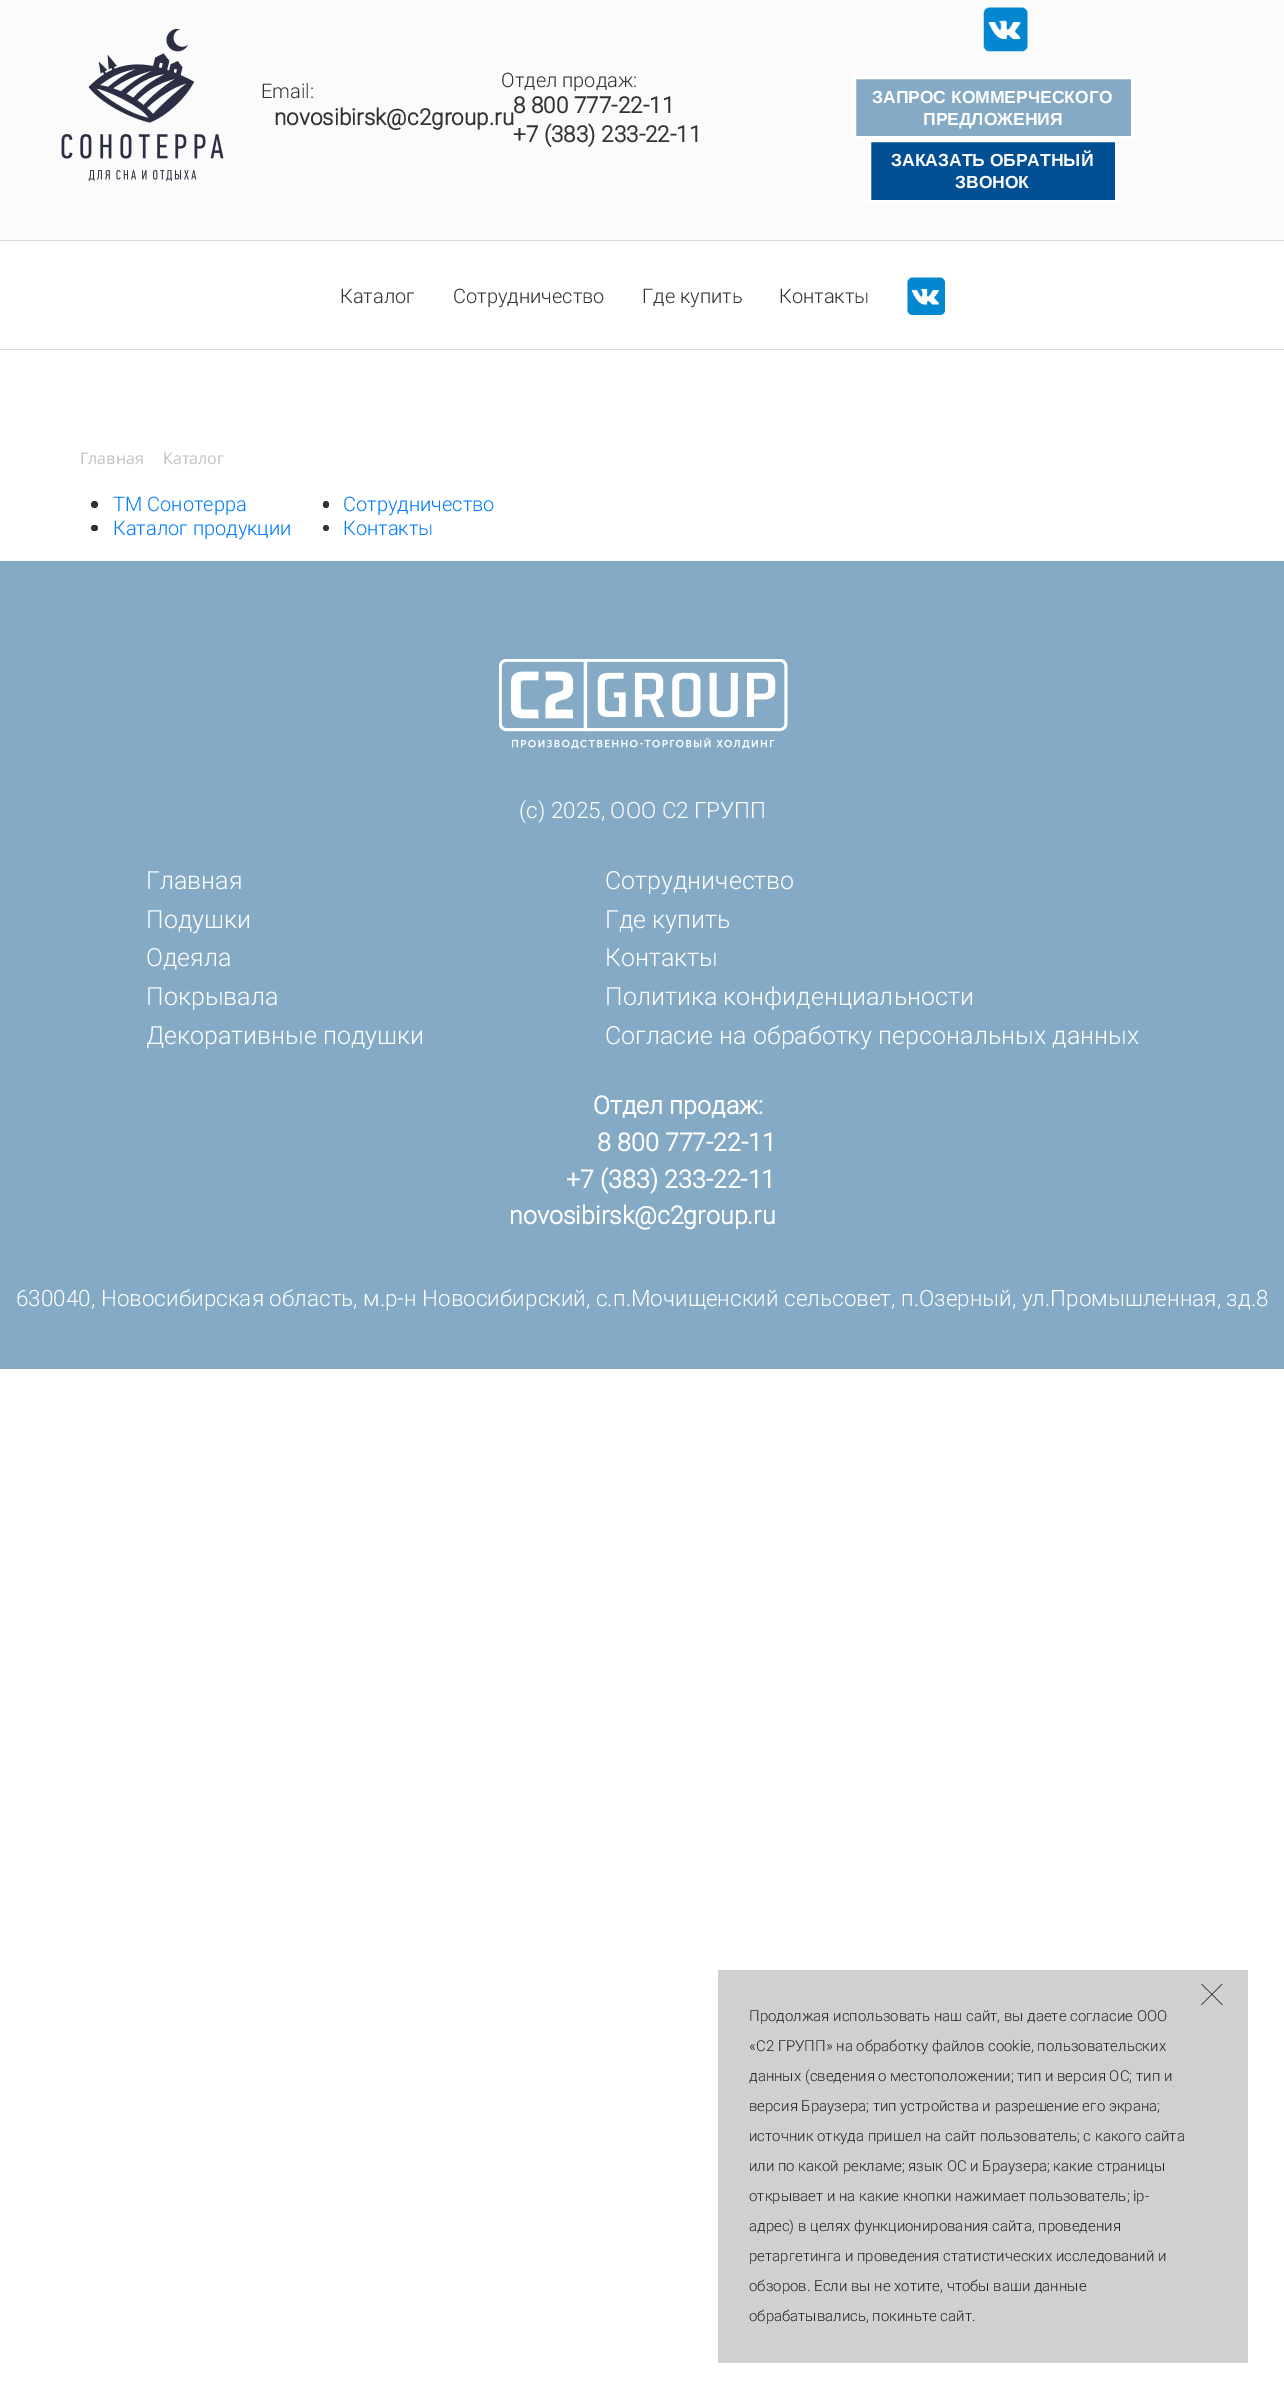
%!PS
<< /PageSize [1284 2400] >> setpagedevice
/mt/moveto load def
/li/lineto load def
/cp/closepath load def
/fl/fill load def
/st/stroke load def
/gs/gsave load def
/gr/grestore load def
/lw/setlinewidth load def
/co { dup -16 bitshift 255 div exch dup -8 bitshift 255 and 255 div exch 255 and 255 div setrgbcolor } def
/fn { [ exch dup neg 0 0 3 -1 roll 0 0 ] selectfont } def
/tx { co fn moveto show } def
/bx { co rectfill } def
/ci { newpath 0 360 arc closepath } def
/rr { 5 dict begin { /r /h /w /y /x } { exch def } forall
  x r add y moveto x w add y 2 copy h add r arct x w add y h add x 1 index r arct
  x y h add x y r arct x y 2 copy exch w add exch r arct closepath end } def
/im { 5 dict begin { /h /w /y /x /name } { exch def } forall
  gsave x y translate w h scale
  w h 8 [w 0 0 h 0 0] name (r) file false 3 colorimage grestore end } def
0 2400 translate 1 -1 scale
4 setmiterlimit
0 0 1284 2400 16#FFFFFF bx
0 0 1284 240 16#FBFBFB bx
(media/1.raw) 61 29 163 152 im
(media/2.raw) 983 7 45 45 im
16#85AAC5 co
854.5 77.5 mt 1132.5 77.5 li 1132.5 137.5 li 854.5 137.5 li cp gs fl gr
16#FFFFFF co
3 lw
st
16#024F93 co
869.5 140.5 mt 1116.5 140.5 li 1116.5 201.5 li 869.5 201.5 li cp gs fl gr
16#FFFFFF co
st
0 240 1284 1 16#D8D8D8 bx
0 349 1284 1 16#D8D8D8 bx
(media/3.raw) 907 277 38 38 im
16#323232 co
94.5 504.5 3.5 ci fl
91 525 7 6 3 rr fl
323 501 6 7 3 rr fl
326 528 3 ci fl
0 561 1284 808 16#85AAC5 bx
(media/4.raw) 499 659 289 90 im
718 1970 530 393 16#D0D0D0 bx
(media/5.raw) 1201 1984 22 21 im
(Email:) 261 98 /Roboto-Light 20 16#323232 tx
(novosibirsk@c2group.ru) 274 125 /Roboto-Bold 22.5 16#323232 tx
(Отдел продаж:) 501 87 /Roboto-Light 20 16#323232 tx
(8 800 777-22-11) 513 113 /Roboto-Bold 22.5 16#323232 tx
(+7 \(383\) 233-22-11) 513 142 /Roboto-Bold 22.5 16#323232 tx
(ЗАПРОС КОММЕРЧЕСКОГО) 872 103 /LiberationSans-Bold 17.5 16#FFFFFF tx
(ПРЕДЛОЖЕНИЯ) 923 125 /LiberationSans-Bold 17.5 16#FFFFFF tx
(ЗАКАЗАТЬ ОБРАТНЫЙ) 891 166 /LiberationSans-Bold 17.5 16#FFFFFF tx
(ЗВОНОК) 955 188 /LiberationSans-Bold 17.5 16#FFFFFF tx
(Каталог) 340 303 /Roboto-Light 20 16#323232 tx
(Сотрудничество) 453 303 /Roboto-Light 20 16#323232 tx
(Где купить) 642 303 /Roboto-Light 20 16#323232 tx
(Контакты) 779 303 /Roboto-Light 20 16#323232 tx
(Главная) 80 464 /OpenSans-Regular 16 16#C2C2C2 tx
(Каталог) 163 464 /OpenSans-Regular 16 16#C2C2C2 tx
(ТМ Сонотерра) 113 511 /Roboto-Light 20 16#007BFF tx
(Каталог продукции) 113 535 /Roboto-Light 20 16#007BFF tx
(Сотрудничество) 343 511 /Roboto-Light 20 16#007BFF tx
(Контакты) 343 535 /Roboto-Light 20 16#007BFF tx
(\(с\) 2025, ООО С2 ГРУПП) 519 818 /Roboto-Light 22.5 16#FFFFFF tx
(Главная) 146 889 /Roboto-Light 25 16#FFFFFF tx
(Подушки) 146 928 /Roboto-Light 25 16#FFFFFF tx
(Одеяла) 146 966 /Roboto-Light 25 16#FFFFFF tx
(Покрывала) 146 1005 /Roboto-Light 25 16#FFFFFF tx
(Декоративные подушки) 146 1044 /Roboto-Light 25 16#FFFFFF tx
(Сотрудничество) 605 889 /Roboto-Light 25 16#FFFFFF tx
(Где купить) 605 928 /Roboto-Light 25 16#FFFFFF tx
(Контакты) 605 966 /Roboto-Light 25 16#FFFFFF tx
(Политика конфиденциальности) 605 1005 /Roboto-Light 25 16#FFFFFF tx
(Согласие на обработку персональных данных) 605 1044 /Roboto-Light 25 16#FFFFFF tx
(Отдел продаж:) 593 1114 /Roboto-Bold 25 16#FFFFFF tx
(8 800 777-22-11) 597 1151 /Roboto-Bold 25 16#FFFFFF tx
(+7 \(383\) 233-22-11) 566 1188 /Roboto-Bold 25 16#FFFFFF tx
(novosibirsk@c2group.ru) 509 1224 /Roboto-Bold 25 16#FFFFFF tx
(630040, Новосибирская область, м.р-н Новосибирский, с.п.Мочищенский сельсовет, п.Озерный, ул.Промышленная, зд.8) 16 1306 /Roboto-Light 22.5 16#FFFFFF tx
(Продолжая использовать наш сайт, вы даете согласие ООО) 749 2021 /Roboto-Light 15 16#222222 tx
(«С2 ГРУПП» на обработку файлов cookie, пользовательских) 749 2051 /Roboto-Light 15 16#222222 tx
(данных \(сведения о местоположении; тип и версия ОС; тип и) 749 2081 /Roboto-Light 15 16#222222 tx
(версия Браузера; тип устройства и разрешение его экрана;) 749 2111 /Roboto-Light 15 16#222222 tx
(источник откуда пришел на сайт пользователь; с какого сайта) 749 2141 /Roboto-Light 15 16#222222 tx
(или по какой рекламе; язык ОС и Браузера; какие страницы) 749 2171 /Roboto-Light 15 16#222222 tx
(открывает и на какие кнопки нажимает пользователь; ip-) 749 2201 /Roboto-Light 15 16#222222 tx
(адрес\) в целях функционирования сайта, проведения) 749 2231 /Roboto-Light 15 16#222222 tx
(ретаргетинга и проведения статистических исследований и) 749 2261 /Roboto-Light 15 16#222222 tx
(обзоров. Если вы не хотите, чтобы ваши данные) 749 2291 /Roboto-Light 15 16#222222 tx
(обрабатывались, покиньте сайт.) 749 2321 /Roboto-Light 15 16#222222 tx
showpage
